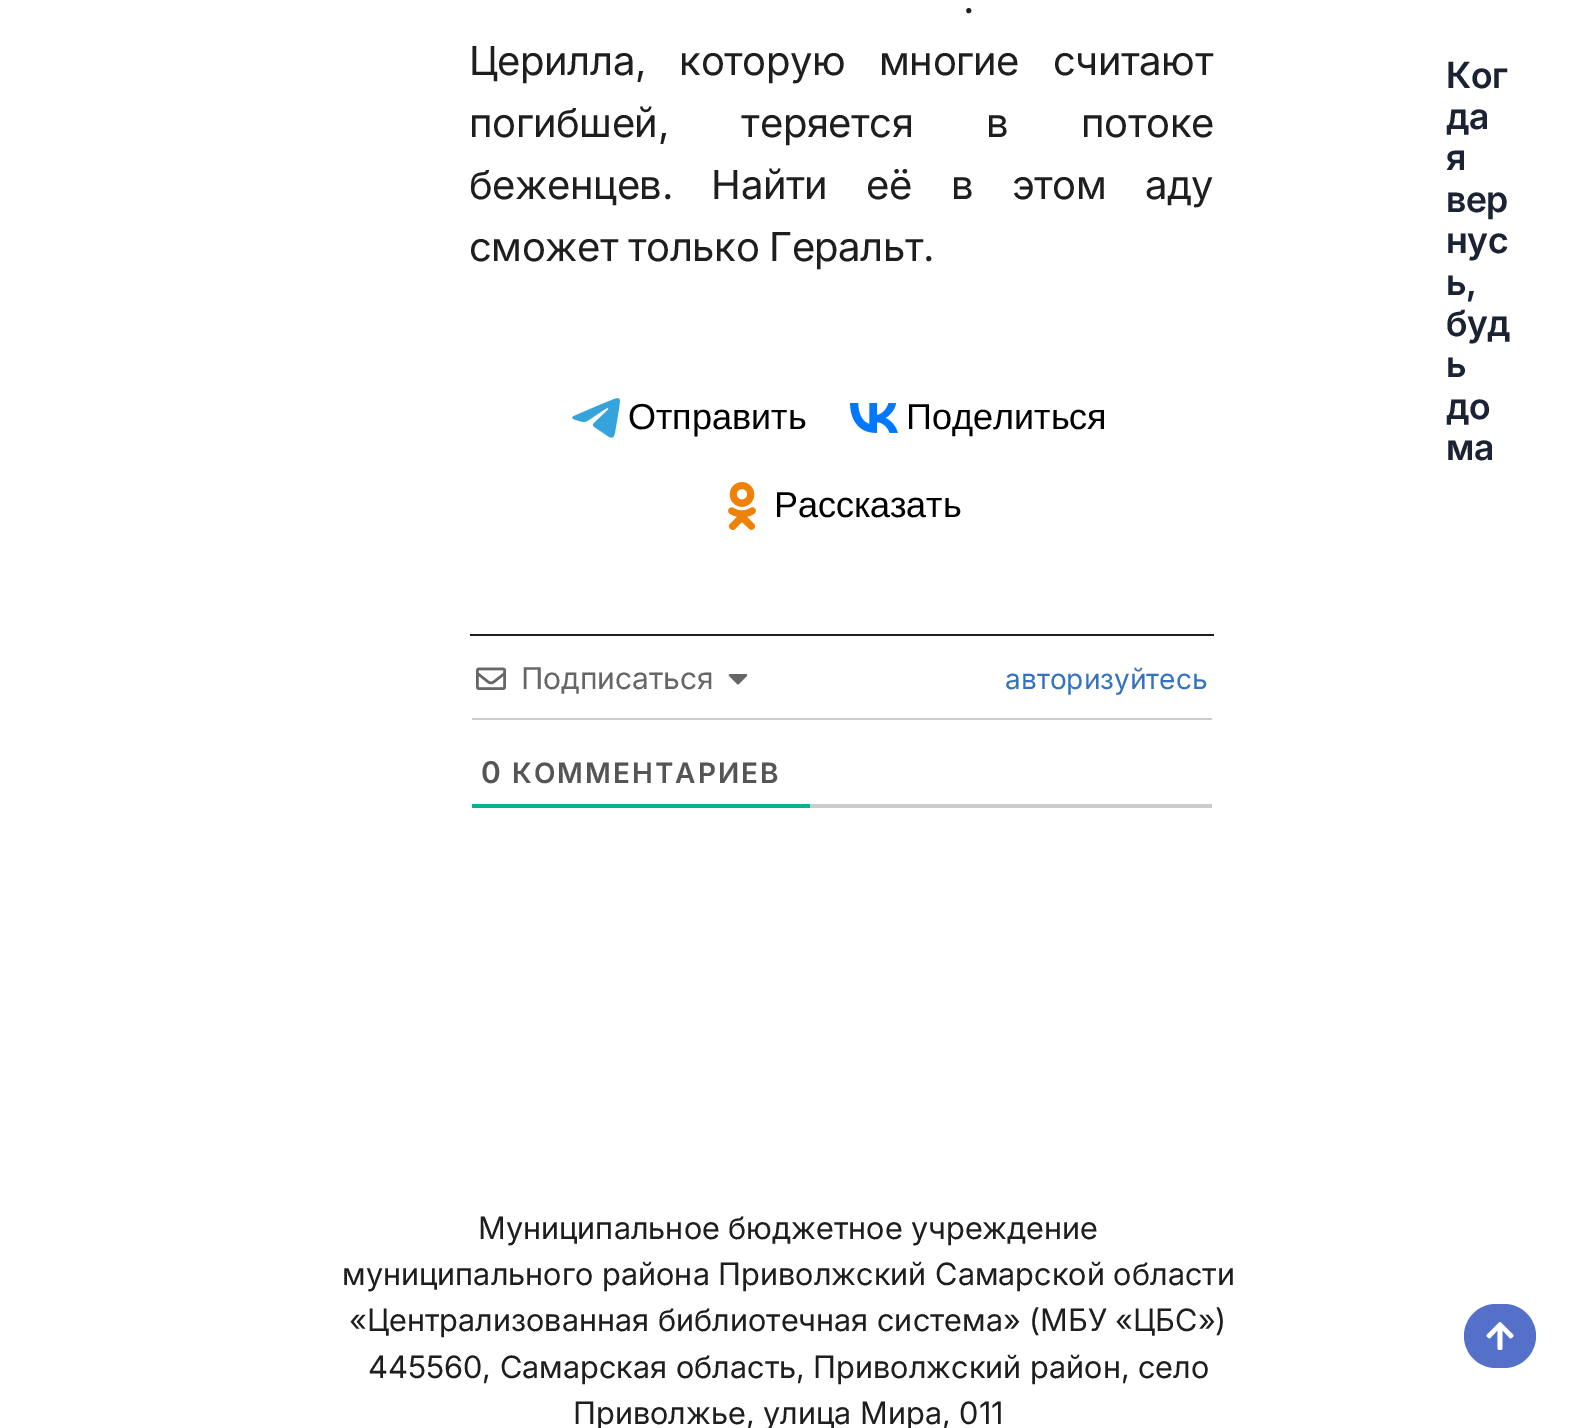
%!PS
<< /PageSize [1575 1428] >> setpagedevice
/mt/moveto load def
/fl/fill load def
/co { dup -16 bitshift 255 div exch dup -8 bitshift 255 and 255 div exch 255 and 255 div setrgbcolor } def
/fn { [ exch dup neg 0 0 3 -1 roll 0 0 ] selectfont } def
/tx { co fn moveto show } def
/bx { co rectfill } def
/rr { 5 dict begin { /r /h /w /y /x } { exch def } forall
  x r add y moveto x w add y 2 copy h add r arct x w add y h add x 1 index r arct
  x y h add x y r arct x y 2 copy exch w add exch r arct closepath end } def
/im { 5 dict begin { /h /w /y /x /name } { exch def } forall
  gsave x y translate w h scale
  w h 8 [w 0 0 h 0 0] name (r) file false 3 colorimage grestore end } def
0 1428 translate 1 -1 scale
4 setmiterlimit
0 0 1575 1428 16#FFFFFF bx
(media/1.raw) 572 398 48 40 im
(media/2.raw) 850 403 48 30 im
(media/3.raw) 728 482 28 48 im
470 634 744 2 16#1E1E1E bx
472 718 740 2 16#CCCCCC bx
(media/4.raw) 476 667 30 23 im
(media/5.raw) 728 674 20 11 im
810 804 402 4 16#CCCCCC bx
472 804 338 4 16#07B290 bx
16#5470C9 co
1464 1304 72 64 32 rr fl
(media/6.raw) 1486 1322 28 28 im
/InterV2-Regular 40 fn
16#1E1E1E co
963 13 mt 16 0 32 -.45 0 (.) awidthshow
469 75 mt 23 0 32 -.45 0 (Церилла, которую многие считают) awidthshow
469 137 mt 62 0 32 -.45 0 (погибшей, теряется в потоке) awidthshow
469 199 mt 28 0 32 -.45 0 (беженцев. Найти её в этом аду) awidthshow
469 261 mt -1 0 32 -.45 0 (сможет только Геральт.) awidthshow
(Отправить) 628 429 /LiberationSans-Regular 36 16#000000 tx
(Поделиться) 906 429 /LiberationSans-Regular 36 16#000000 tx
(Рассказать) 774 517 /LiberationSans-Regular 36 16#000000 tx
(Подписаться) 521 689 /InterV2-Regular 30 16#666666 tx
(авторизуйтесь) 1005 689 /InterV2-Regular 28 16#3272BF tx
/InterV2-SemiBold 30 fn
16#555555 co
481 783 mt 2 0 (0) ashow
/InterV2-SemiBold 28 fn
512 783 mt 2 0 (КОММЕНТАРИЕВ) ashow
/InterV-SemiBold 36 fn
16#1A2233 co
1446 88 mt -.5 0 (Ког) ashow
1446 129 mt -.5 0 (да) ashow
1446 170 mt -.5 0 (я) ashow
1446 212 mt -.5 0 (вер) ashow
1446 253 mt -.5 0 (нус) ashow
1446 295 mt -.5 0 (ь,) ashow
1446 336 mt -.5 0 (буд) ashow
1446 377 mt -.5 0 (ь) ashow
1446 419 mt -.5 0 (до) ashow
1446 460 mt -.5 0 (ма) ashow
(Муниципальное бюджетное учреждение) 478 1239 /InterV-Regular 30.8 16#1E1E1E tx
(муниципального района Приволжский Самарской области) 342 1285 /InterV-Regular 30.8 16#1E1E1E tx
(«Централизованная библиотечная система») 349 1331 /InterV-Regular 30.8 16#1E1E1E tx
(\(МБУ «ЦБС»\)) 1029 1331 /InterV-Regular 30.8 16#1E1E1E tx
(445560, Самарская область, Приволжский район, село) 368 1378 /InterV-Regular 30.8 16#1E1E1E tx
(Приволжье, улица Мира, 011) 573 1424 /InterV-Regular 30.8 16#1E1E1E tx
showpage
